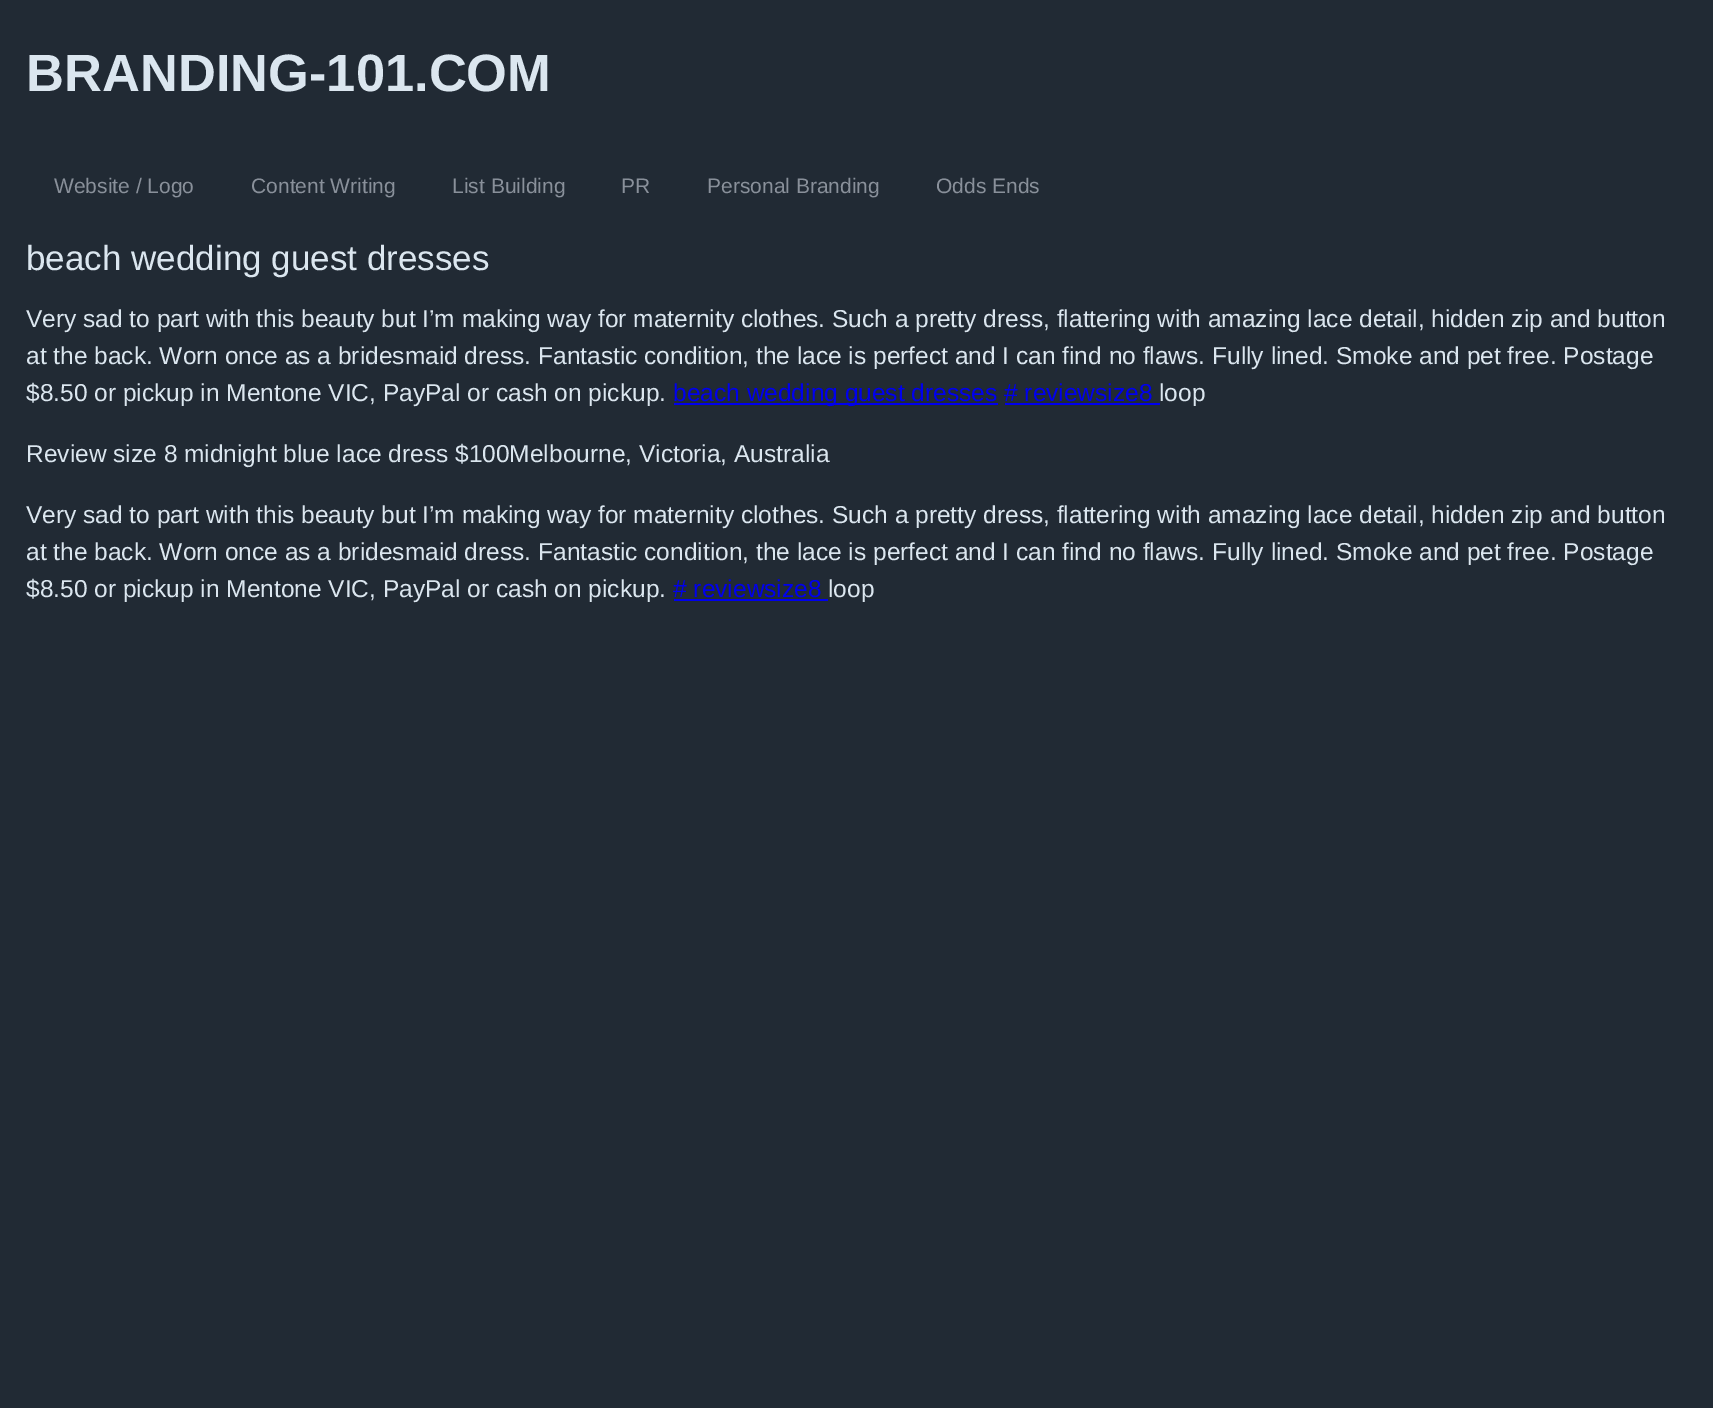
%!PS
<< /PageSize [1713 1408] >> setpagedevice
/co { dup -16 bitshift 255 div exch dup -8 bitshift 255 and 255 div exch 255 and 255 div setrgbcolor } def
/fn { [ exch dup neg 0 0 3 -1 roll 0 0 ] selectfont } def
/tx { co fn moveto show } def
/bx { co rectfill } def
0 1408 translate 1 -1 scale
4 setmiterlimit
0 0 1713 1408 16#212A34 bx
674 403 324 2 16#0000EE bx
1005 403 155 2 16#0000EE bx
674 599 154 2 16#0000EE bx
(BRANDING-101.COM) 26 91 /LiberationSans-Bold 52.5 16#DBE6EF tx
(Website / Logo) 54 193 /LiberationSans-Regular 21 16#89909A tx
(Content Writing) 251 193 /LiberationSans-Regular 21 16#89909A tx
(List Building) 452 193 /LiberationSans-Regular 21 16#89909A tx
(PR) 621 193 /LiberationSans-Regular 21 16#89909A tx
(Personal Branding) 707 193 /LiberationSans-Regular 21 16#89909A tx
(Odds Ends) 936 193 /LiberationSans-Regular 21 16#89909A tx
(beach wedding guest dresses) 26 270 /LiberationSans-Regular 35 16#DBE6EF tx
(Very sad to part with this beauty but I’m making way for maternity clothes. Such a pretty dress, flattering with amazing lace detail, hidden zip and button) 26 327 /LiberationSans-Regular 24.5 16#DBE6EF tx
(at the back. Worn once as a bridesmaid dress. Fantastic condition, the lace is perfect and I can find no flaws. Fully lined. Smoke and pet free. Postage) 26 364 /LiberationSans-Regular 24.5 16#DBE6EF tx
($8.50 or pickup in Mentone VIC, PayPal or cash on pickup.) 26 401 /LiberationSans-Regular 24.5 16#DBE6EF tx
(beach wedding guest dresses # reviewsize8) 673 401 /LiberationSans-Regular 24.5 16#0000EE tx
(loop) 1159 401 /LiberationSans-Regular 24.5 16#DBE6EF tx
(Review size 8 midnight blue lace dress $100Melbourne, Victoria, Australia) 26 462 /LiberationSans-Regular 24.5 16#DBE6EF tx
(Very sad to part with this beauty but I’m making way for maternity clothes. Such a pretty dress, flattering with amazing lace detail, hidden zip and button) 26 523 /LiberationSans-Regular 24.5 16#DBE6EF tx
(at the back. Worn once as a bridesmaid dress. Fantastic condition, the lace is perfect and I can find no flaws. Fully lined. Smoke and pet free. Postage) 26 560 /LiberationSans-Regular 24.5 16#DBE6EF tx
($8.50 or pickup in Mentone VIC, PayPal or cash on pickup.) 26 597 /LiberationSans-Regular 24.5 16#DBE6EF tx
(# reviewsize8) 673 597 /LiberationSans-Regular 24.5 16#0000EE tx
(loop) 828 597 /LiberationSans-Regular 24.5 16#DBE6EF tx
showpage
